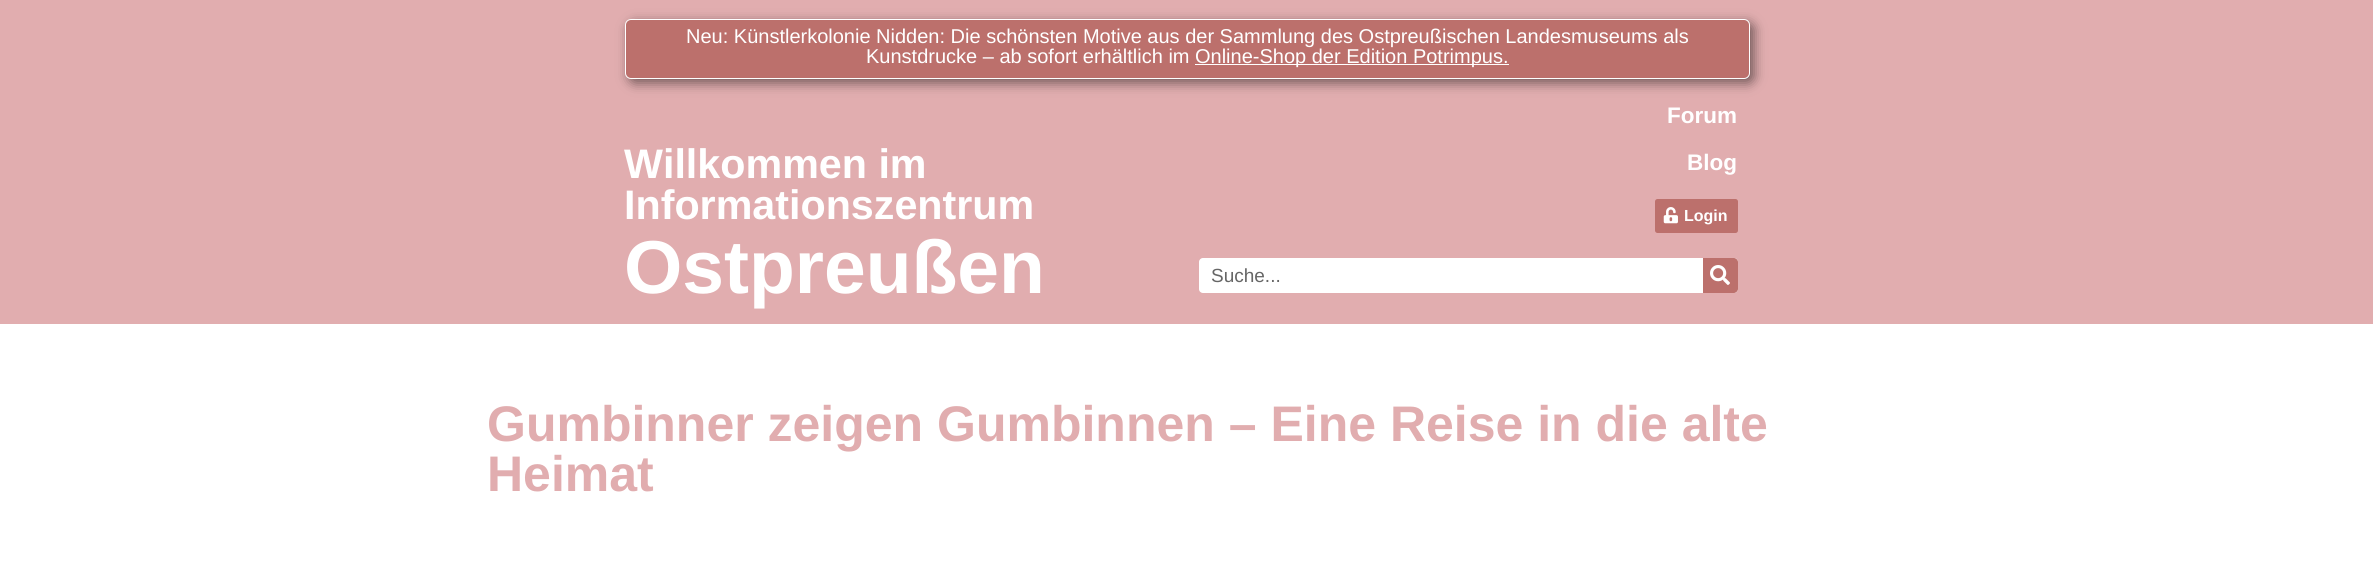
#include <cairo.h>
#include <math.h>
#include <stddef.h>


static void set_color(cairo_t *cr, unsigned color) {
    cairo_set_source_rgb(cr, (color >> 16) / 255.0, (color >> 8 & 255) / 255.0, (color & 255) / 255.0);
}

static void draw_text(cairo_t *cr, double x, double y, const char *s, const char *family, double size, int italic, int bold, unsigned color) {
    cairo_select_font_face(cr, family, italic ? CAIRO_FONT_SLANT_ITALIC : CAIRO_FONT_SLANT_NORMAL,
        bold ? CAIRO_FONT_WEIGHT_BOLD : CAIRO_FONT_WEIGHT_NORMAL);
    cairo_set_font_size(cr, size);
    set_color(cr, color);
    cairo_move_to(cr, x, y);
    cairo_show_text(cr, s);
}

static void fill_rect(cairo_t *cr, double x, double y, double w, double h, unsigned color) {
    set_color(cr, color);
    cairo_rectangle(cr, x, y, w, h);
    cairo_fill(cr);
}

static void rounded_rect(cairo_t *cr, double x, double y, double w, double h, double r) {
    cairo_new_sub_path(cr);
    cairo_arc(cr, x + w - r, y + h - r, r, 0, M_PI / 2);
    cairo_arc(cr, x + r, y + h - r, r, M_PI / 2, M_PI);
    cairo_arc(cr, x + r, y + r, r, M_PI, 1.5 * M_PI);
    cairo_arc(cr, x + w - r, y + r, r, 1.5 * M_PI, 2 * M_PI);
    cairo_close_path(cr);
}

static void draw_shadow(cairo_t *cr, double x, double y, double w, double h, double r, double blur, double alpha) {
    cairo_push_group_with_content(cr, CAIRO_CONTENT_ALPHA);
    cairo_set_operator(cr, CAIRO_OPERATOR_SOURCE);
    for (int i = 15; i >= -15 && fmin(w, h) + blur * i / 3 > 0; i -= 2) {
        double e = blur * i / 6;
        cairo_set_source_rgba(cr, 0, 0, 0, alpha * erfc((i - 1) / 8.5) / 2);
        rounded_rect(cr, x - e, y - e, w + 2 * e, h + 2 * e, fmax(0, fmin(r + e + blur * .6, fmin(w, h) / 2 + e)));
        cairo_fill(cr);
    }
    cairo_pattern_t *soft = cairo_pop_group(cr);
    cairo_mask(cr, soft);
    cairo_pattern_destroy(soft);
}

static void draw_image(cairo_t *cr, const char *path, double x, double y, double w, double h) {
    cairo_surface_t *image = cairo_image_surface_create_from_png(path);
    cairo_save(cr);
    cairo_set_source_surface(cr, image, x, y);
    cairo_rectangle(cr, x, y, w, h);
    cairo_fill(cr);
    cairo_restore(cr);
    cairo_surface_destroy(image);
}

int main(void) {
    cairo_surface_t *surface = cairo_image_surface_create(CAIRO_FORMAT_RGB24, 2373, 562);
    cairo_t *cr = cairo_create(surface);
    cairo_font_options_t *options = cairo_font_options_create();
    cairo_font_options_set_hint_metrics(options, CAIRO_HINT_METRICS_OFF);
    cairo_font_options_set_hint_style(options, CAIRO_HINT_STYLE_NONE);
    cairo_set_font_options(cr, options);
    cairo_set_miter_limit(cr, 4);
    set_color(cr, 0xFFFFFF);
    cairo_paint(cr);
    fill_rect(cr, 0, 0, 2373, 324, 0xE1ADAF);
    set_color(cr, 0x000000);
    draw_shadow(cr, 629, 23, 1125, 60, 6, 6, 0.5);
    set_color(cr, 0xBC706C);
    rounded_rect(cr, 625.5, 19.5, 1124, 59, 5.5);
    cairo_fill_preserve(cr);
    set_color(cr, 0xFFFFFF);
    cairo_set_line_width(cr, 1);
    cairo_stroke(cr);
    draw_text(cr, 686, 43, "Neu: Künstlerkolonie Nidden: Die schönsten Motive aus der Sammlung des Ostpreußischen Landesmuseums als", "Liberation Sans", 20, 0, 0, 0xFFFFFF);
    draw_text(cr, 866, 63, "Kunstdrucke – ab sofort erhältlich im", "Liberation Sans", 20, 0, 0, 0xFFFFFF);
    fill_rect(cr, 1195, 64, 314, 1, 0xFFFFFF);
    draw_text(cr, 1195, 63, "Online-Shop der Edition Potrimpus.", "Liberation Sans", 20, 0, 0, 0xFFFFFF);
    draw_text(cr, 624, 178, "Willkommen im", "Liberation Sans", 41.25, 0, 1, 0xFFFFFF);
    draw_text(cr, 624, 219, "Informationszentrum", "Liberation Sans", 41.25, 0, 1, 0xFFFFFF);
    draw_text(cr, 624, 293, "Ostpreußen", "Liberation Sans", 75, 0, 1, 0xFFFFFF);
    draw_text(cr, 1667, 123, "Forum", "Liberation Sans", 22.5, 0, 1, 0xFFFFFF);
    draw_text(cr, 1687, 170, "Blog", "Liberation Sans", 22.5, 0, 1, 0xFFFFFF);
    set_color(cr, 0xBC706C);
    rounded_rect(cr, 1655, 199, 83, 34, 2.5);
    cairo_fill(cr);
    draw_image(cr, "assets/img1.png", 1663, 207, 15, 17);
    draw_text(cr, 1684, 221, "Login", "Liberation Sans", 16, 0, 1, 0xFFFFFF);
    rounded_rect(cr, 1199, 258, 539, 35, 4);
    cairo_fill(cr);
    draw_text(cr, 1211, 282, "Suche...", "Liberation Sans", 19, 0, 0, 0x666666);
    set_color(cr, 0xBC706C);
    cairo_new_path(cr);
    cairo_move_to(cr, 1703, 258);
    cairo_line_to(cr, 1734, 258);
    cairo_curve_to(cr, 1736, 258, 1738, 260, 1738, 262);
    cairo_line_to(cr, 1738, 289);
    cairo_curve_to(cr, 1738, 291, 1736, 293, 1734, 293);
    cairo_line_to(cr, 1703, 293);
    cairo_close_path(cr);
    cairo_fill(cr);
    draw_image(cr, "assets/img2.png", 1710, 265, 20, 20);
    draw_text(cr, 487, 441, "Gumbinner zeigen Gumbinnen – Eine Reise in die alte", "Liberation Sans", 50, 0, 1, 0xE1ADAF);
    draw_text(cr, 487, 491, "Heimat", "Liberation Sans", 50, 0, 1, 0xE1ADAF);
    cairo_surface_write_to_png(surface, "output.png");
    cairo_font_options_destroy(options);
    cairo_destroy(cr);
    cairo_surface_destroy(surface);
    return 0;
}
